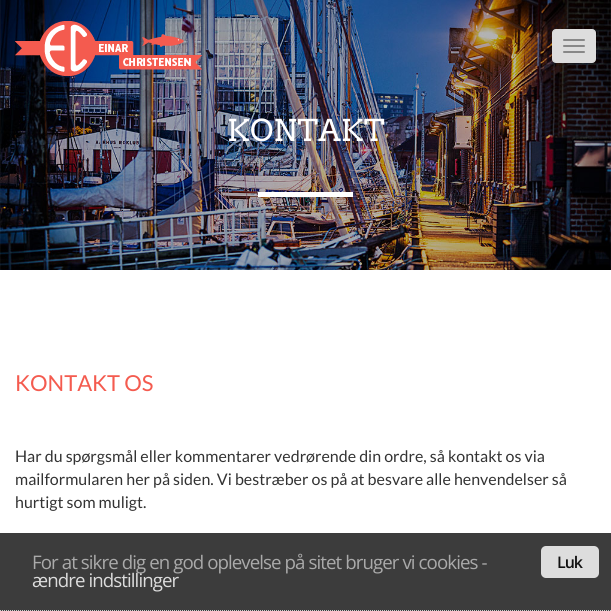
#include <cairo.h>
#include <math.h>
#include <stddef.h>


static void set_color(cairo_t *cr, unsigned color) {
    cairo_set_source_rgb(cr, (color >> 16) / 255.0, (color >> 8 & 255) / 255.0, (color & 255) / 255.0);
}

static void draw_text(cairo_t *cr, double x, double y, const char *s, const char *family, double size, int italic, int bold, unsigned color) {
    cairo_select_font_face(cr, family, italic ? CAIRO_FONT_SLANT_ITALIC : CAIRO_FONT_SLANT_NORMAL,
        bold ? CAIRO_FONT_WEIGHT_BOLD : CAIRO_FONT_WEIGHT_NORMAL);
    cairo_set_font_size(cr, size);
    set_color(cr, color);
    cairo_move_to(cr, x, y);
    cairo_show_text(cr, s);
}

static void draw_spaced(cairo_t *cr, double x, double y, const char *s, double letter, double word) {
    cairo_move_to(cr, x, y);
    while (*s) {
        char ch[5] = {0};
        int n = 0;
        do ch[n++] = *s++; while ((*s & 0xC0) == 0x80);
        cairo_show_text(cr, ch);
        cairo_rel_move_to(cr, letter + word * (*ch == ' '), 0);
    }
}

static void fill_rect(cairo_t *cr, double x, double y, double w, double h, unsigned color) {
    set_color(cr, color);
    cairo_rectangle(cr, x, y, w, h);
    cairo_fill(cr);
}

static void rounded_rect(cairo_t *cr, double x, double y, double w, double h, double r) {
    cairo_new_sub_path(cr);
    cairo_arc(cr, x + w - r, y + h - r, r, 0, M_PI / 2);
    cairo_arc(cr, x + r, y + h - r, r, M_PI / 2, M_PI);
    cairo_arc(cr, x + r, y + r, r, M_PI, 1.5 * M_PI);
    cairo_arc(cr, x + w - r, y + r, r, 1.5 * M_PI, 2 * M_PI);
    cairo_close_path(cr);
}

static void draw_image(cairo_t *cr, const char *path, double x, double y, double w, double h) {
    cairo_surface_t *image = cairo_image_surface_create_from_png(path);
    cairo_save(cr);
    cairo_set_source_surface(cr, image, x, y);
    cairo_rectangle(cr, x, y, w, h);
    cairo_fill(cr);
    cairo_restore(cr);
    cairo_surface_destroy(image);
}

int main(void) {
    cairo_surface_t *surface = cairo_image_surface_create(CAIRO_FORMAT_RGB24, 611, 611);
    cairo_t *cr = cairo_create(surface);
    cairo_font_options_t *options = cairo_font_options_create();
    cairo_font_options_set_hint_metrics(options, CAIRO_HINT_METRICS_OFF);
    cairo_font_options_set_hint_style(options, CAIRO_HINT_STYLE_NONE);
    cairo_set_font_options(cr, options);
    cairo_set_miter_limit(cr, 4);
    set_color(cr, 0xFFFFFF);
    cairo_paint(cr);
    draw_image(cr, "assets/img2.png", 0, 0, 611, 270);
    draw_image(cr, "assets/img1.png", 15, 21, 187, 55);
    set_color(cr, 0xDDDDDD);
    rounded_rect(cr, 552.5, 29.5, 43, 33, 3.5);
    cairo_fill_preserve(cr);
    cairo_set_line_width(cr, 1);
    cairo_stroke(cr);
    set_color(cr, 0x888888);
    rounded_rect(cr, 563, 39, 22, 2, 1);
    cairo_fill(cr);
    rounded_rect(cr, 563, 45, 22, 2, 1);
    cairo_fill(cr);
    rounded_rect(cr, 563, 51, 22, 2, 1);
    cairo_fill(cr);
    fill_rect(cr, 258, 192, 95, 5, 0xFFFFFF);
    draw_text(cr, 227, 141, "KONTAKT", "Arvo", 30, 0, 0, 0xFFFFFF);
    draw_text(cr, 15, 391, "KONTAKT OS", "Lato", 22, 0, 0, 0xF45B4F);
    draw_text(cr, 15, 462, "Har du spørgsmål eller kommentarer vedrørende din ordre, så kontakt os via", "Lato", 16, 0, 0, 0x333333);
    draw_text(cr, 15, 485, "mailformularen her på siden. Vi bestræber os på at besvare alle henvendelser så", "Lato", 16, 0, 0, 0x333333);
    draw_text(cr, 15, 508, "hurtigt som muligt.", "Lato", 16, 0, 0, 0x333333);
    cairo_set_source_rgba(cr, 0.2, 0.2, 0.2, 0.95);
    cairo_rectangle(cr, 0, 533, 611, 78);
    cairo_fill(cr);
    cairo_new_path(cr);
    cairo_move_to(cr, 0, 610.5);
    cairo_line_to(cr, 611, 610.5);
    set_color(cr, 0xCCCCCC);
    cairo_set_dash(cr, (double[]){1, 1}, 2, 0);
    cairo_stroke(cr);
    cairo_select_font_face(cr, "Open Sans", CAIRO_FONT_SLANT_NORMAL, CAIRO_FONT_WEIGHT_NORMAL);
    cairo_set_font_size(cr, 18.7);
    set_color(cr, 0xAAAAAA);
    draw_spaced(cr, 32, 569, "For at sikre dig en god oplevelse på sitet bruger vi cookies -", -0.93, 0);
    set_color(cr, 0xDDDDDD);
    draw_spaced(cr, 32, 587, "ændre indstillinger", -0.93, 0);
    rounded_rect(cr, 541, 546, 58, 32, 5);
    cairo_fill(cr);
    cairo_select_font_face(cr, "Open Sans SemiBold", CAIRO_FONT_SLANT_NORMAL, CAIRO_FONT_WEIGHT_NORMAL);
    cairo_set_font_size(cr, 16);
    set_color(cr, 0x111111);
    draw_spaced(cr, 557, 568, "Luk", -1, 0);
    cairo_surface_write_to_png(surface, "output.png");
    cairo_font_options_destroy(options);
    cairo_destroy(cr);
    cairo_surface_destroy(surface);
    return 0;
}
